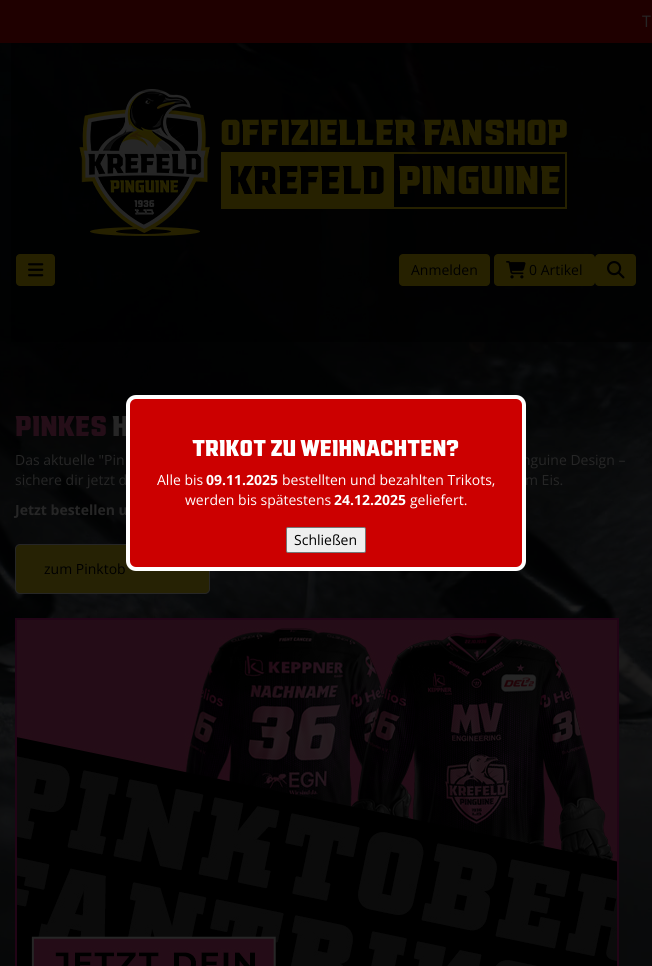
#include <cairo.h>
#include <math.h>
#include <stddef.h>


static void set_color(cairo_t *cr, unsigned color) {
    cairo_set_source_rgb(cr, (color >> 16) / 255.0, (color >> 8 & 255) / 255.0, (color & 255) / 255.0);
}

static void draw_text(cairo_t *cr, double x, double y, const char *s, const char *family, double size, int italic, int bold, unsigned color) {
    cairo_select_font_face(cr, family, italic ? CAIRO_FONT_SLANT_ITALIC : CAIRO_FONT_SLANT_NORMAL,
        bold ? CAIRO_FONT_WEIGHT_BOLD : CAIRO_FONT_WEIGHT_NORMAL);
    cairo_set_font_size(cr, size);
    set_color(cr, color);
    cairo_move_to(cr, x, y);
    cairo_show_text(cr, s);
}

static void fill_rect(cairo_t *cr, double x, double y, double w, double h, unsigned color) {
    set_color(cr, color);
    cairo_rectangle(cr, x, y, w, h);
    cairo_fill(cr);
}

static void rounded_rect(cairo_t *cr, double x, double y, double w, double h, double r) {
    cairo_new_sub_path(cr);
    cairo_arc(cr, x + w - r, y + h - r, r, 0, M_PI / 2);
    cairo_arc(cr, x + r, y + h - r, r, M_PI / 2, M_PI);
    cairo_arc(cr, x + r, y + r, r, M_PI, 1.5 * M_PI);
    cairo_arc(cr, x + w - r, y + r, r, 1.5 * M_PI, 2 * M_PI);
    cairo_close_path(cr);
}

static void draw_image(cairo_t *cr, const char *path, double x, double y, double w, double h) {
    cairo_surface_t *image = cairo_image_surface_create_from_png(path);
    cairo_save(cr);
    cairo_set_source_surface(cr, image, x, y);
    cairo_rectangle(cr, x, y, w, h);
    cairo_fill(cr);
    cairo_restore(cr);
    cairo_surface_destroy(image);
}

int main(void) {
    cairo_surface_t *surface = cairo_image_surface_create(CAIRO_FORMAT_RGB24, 652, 966);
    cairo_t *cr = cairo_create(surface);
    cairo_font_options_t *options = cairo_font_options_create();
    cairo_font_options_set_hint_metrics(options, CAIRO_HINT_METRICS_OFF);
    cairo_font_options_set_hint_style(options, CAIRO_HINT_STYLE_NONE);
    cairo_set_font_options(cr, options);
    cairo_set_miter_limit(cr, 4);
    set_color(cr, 0xFFFFFF);
    cairo_paint(cr);
    draw_image(cr, "assets/img1.png", 0, 43, 652, 923);
    cairo_set_source_rgba(cr, 0, 0, 0, 0.6);
    cairo_rectangle(cr, 11, 43, 641, 299);
    cairo_fill(cr);
    draw_image(cr, "assets/img2.png", 79, 89, 488, 147);
    cairo_set_source_rgba(cr, 0, 0, 0, 0.2);
    cairo_rectangle(cr, 140, 90, 25, 2);
    cairo_fill(cr);
    fill_rect(cr, 0, 0, 652, 43, 0x1F0000);
    draw_text(cr, 642, 27, "T", "Open Sans", 16, 0, 0, 0x262626);
    set_color(cr, 0x262100);
    rounded_rect(cr, 16, 254, 39, 32, 4);
    cairo_fill(cr);
    draw_image(cr, "assets/img3.png", 28, 263, 16, 14);
    rounded_rect(cr, 399, 254, 91, 32, 4);
    cairo_fill(cr);
    draw_text(cr, 411, 275, "Anmelden", "Open Sans", 14, 0, 0, 0x000000);
    set_color(cr, 0x262100);
    rounded_rect(cr, 494, 254, 101, 32, 4);
    cairo_fill(cr);
    draw_image(cr, "assets/img4.png", 506, 261, 20, 18);
    draw_text(cr, 529, 275, "0 Artikel", "Open Sans", 14, 0, 0, 0x000000);
    set_color(cr, 0x262100);
    rounded_rect(cr, 595, 254, 41, 32, 4);
    cairo_fill(cr);
    draw_image(cr, "assets/img5.png", 607, 261, 18, 18);
    draw_text(cr, 112, 436, "H", "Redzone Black", 30, 0, 0, 0x262626);
    draw_text(cr, 522, 465, "nguine Design –", "Open Sans", 14, 0, 0, 0x262626);
    draw_text(cr, 15, 515, "Jetzt bestellen u", "Open Sans", 14, 0, 1, 0x262626);
    set_color(cr, 0x262204);
    rounded_rect(cr, 15.5, 544.5, 194, 49, 4.5);
    cairo_fill_preserve(cr);
    set_color(cr, 0x262626);
    cairo_set_line_width(cr, 1);
    cairo_stroke(cr);
    set_color(cr, 0xCC0000);
    rounded_rect(cr, 128, 397, 396, 172, 8);
    cairo_fill_preserve(cr);
    set_color(cr, 0xFFFFFF);
    cairo_set_line_width(cr, 4);
    cairo_stroke(cr);
    draw_text(cr, 192, 456, "TRIKOT ZU WEIHNACHTEN?", "Redzone Black", 24, 0, 0, 0xFFFFFF);
    draw_text(cr, 157, 485, "Alle bis", "Open Sans", 14, 0, 0, 0xFFFFFF);
    draw_text(cr, 206, 485, "09.11.2025", "Open Sans", 14, 0, 1, 0xFFFFFF);
    draw_text(cr, 282, 485, "bestellten und bezahlten Trikots,", "Open Sans", 14, 0, 0, 0xFFFFFF);
    draw_text(cr, 185, 505, "werden bis spätestens", "Open Sans", 14, 0, 0, 0xFFFFFF);
    draw_text(cr, 334, 505, "24.12.2025", "Open Sans", 14, 0, 1, 0xFFFFFF);
    draw_text(cr, 410, 505, "geliefert.", "Open Sans", 14, 0, 0, 0xFFFFFF);
    set_color(cr, 0xEFEFEF);
    rounded_rect(cr, 286.5, 527.5, 79, 25, 1.5);
    cairo_fill_preserve(cr);
    set_color(cr, 0x767676);
    cairo_set_line_width(cr, 1);
    cairo_stroke(cr);
    draw_text(cr, 294, 545, "Schließen", "Open Sans", 14, 0, 0, 0x000000);
    draw_text(cr, 15, 436, "PINKES", "Redzone Black", 30, 0, 0, 0x250E18);
    draw_text(cr, 15, 465, "Das aktuelle \"Pin", "Open Sans", 14, 0, 0, 0x262626);
    draw_text(cr, 15, 485, "sichere dir jetzt d", "Open Sans", 14, 0, 0, 0x262626);
    draw_text(cr, 525, 485, "m Eis.", "Open Sans", 14, 0, 0, 0x262626);
    draw_text(cr, 44, 574, "zum Pinktob", "Open Sans", 14, 0, 0, 0x000000);
    cairo_rectangle(cr, 16, 619, 602, 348);
    set_color(cr, 0x220416);
    cairo_set_line_width(cr, 2);
    cairo_stroke(cr);
    draw_image(cr, "assets/img6.png", 17, 620, 600, 346);
    cairo_surface_write_to_png(surface, "output.png");
    cairo_font_options_destroy(options);
    cairo_destroy(cr);
    cairo_surface_destroy(surface);
    return 0;
}
